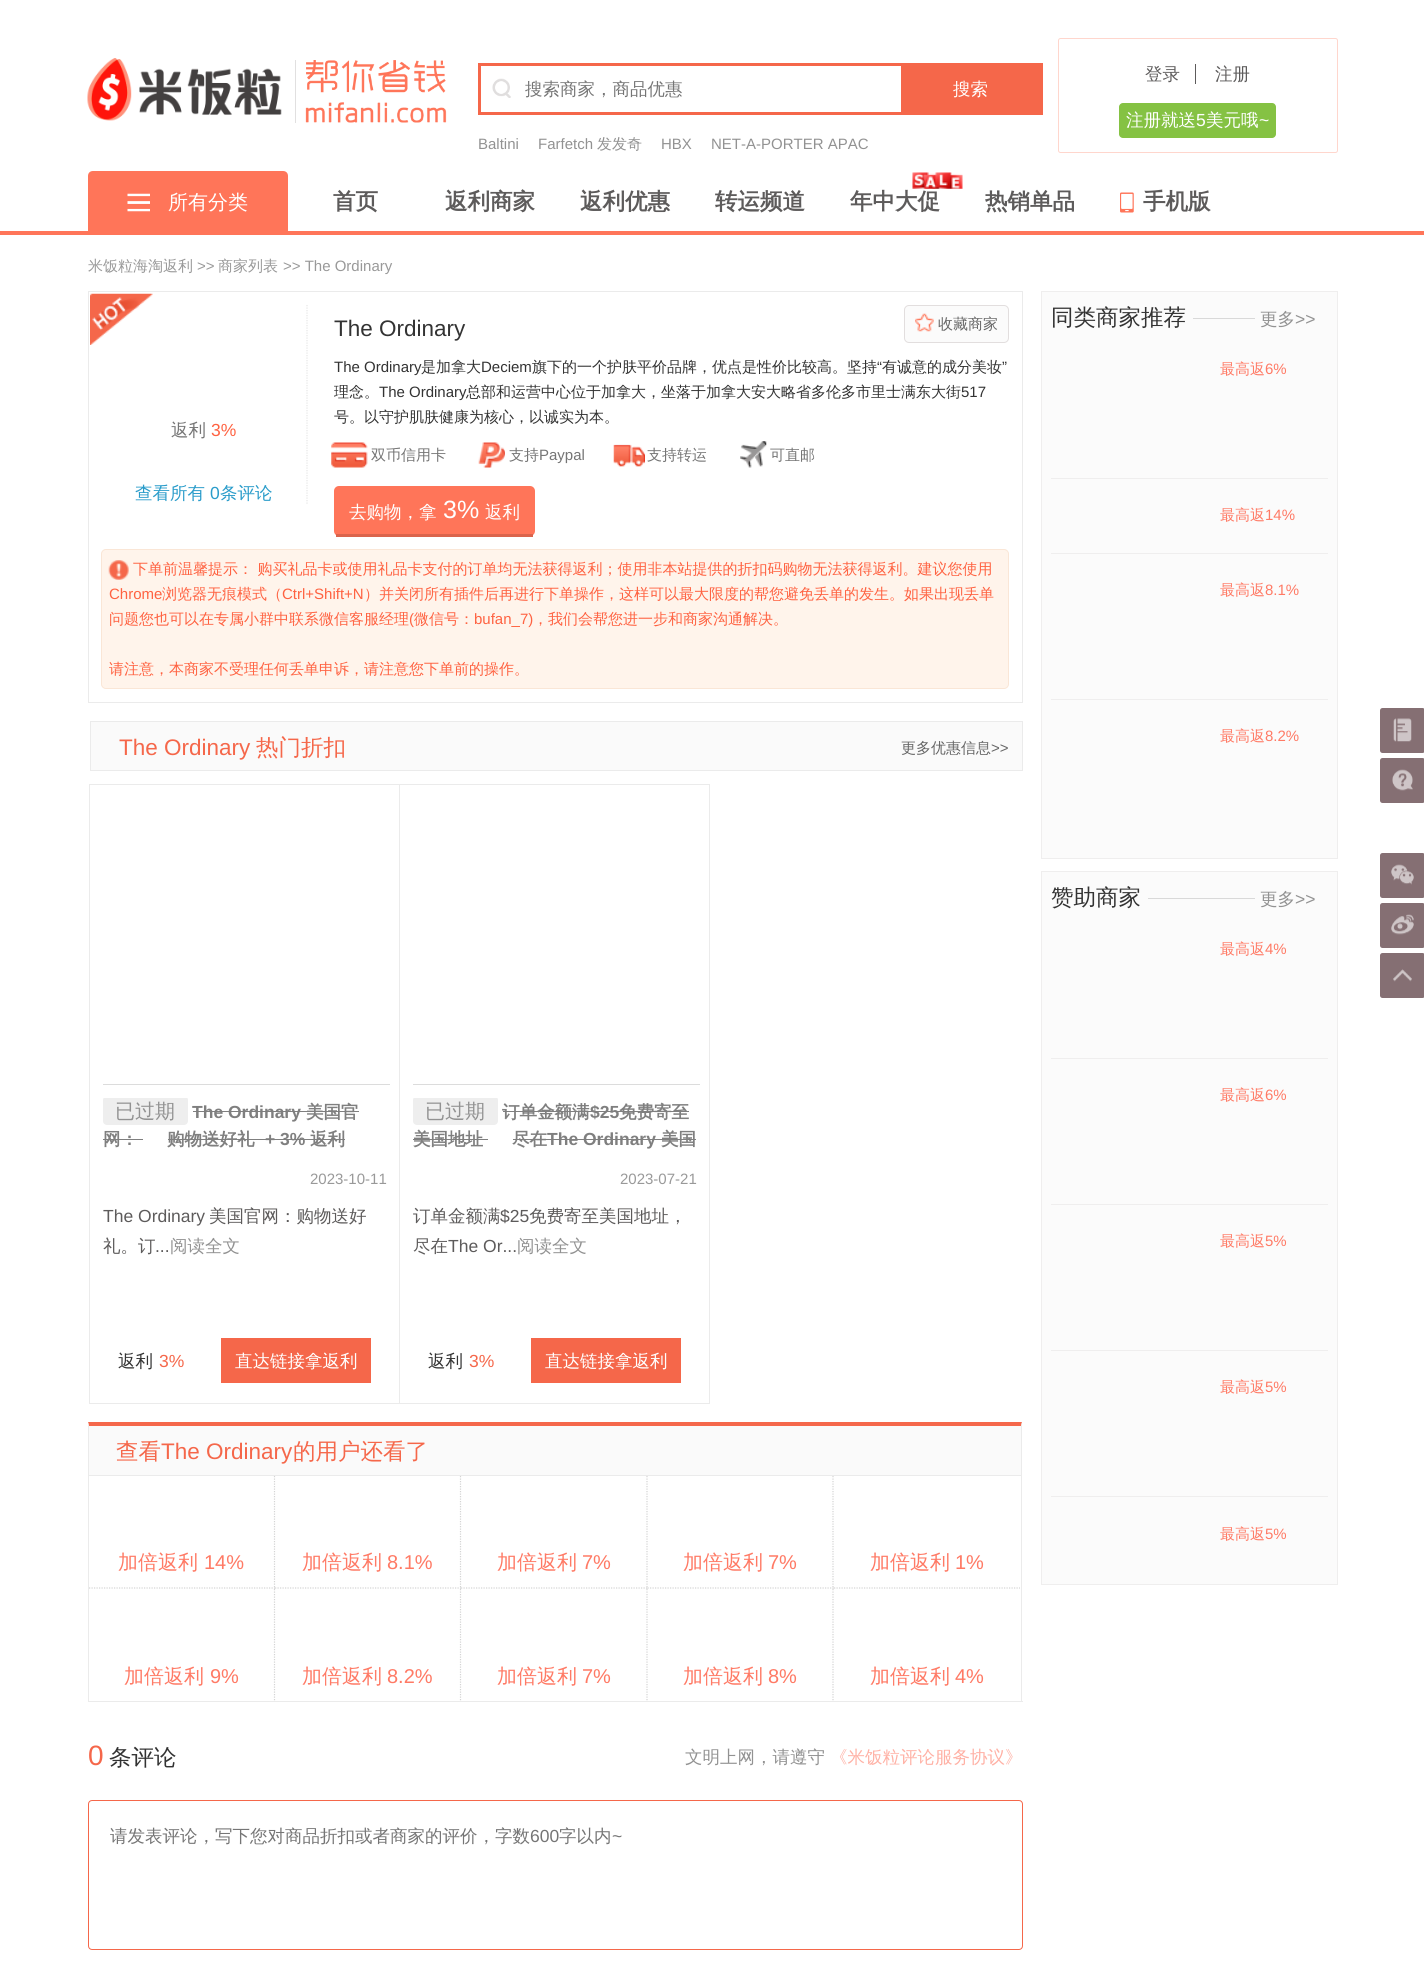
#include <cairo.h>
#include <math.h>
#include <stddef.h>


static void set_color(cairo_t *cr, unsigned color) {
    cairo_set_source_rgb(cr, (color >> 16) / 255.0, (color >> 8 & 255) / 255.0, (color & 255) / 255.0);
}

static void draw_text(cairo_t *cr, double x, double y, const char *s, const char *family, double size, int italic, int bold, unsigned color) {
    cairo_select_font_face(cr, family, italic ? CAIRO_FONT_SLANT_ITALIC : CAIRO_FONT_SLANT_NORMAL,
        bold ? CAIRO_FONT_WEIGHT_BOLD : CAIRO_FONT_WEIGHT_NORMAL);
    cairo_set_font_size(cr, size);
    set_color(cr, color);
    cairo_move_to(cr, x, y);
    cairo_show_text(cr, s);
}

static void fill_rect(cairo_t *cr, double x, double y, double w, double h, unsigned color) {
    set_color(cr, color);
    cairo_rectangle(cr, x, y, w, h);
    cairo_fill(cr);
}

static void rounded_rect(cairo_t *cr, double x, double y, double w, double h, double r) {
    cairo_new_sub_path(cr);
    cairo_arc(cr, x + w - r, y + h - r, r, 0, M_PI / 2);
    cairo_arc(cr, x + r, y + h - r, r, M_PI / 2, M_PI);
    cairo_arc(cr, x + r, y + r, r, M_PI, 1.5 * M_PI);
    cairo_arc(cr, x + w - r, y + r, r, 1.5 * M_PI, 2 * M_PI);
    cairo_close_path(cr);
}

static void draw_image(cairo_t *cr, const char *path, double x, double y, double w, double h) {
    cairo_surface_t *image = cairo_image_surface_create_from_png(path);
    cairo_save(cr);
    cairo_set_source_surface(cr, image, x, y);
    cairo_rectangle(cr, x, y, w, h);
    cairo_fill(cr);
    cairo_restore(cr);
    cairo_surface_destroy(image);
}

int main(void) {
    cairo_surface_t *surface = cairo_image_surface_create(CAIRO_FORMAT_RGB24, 1424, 1965);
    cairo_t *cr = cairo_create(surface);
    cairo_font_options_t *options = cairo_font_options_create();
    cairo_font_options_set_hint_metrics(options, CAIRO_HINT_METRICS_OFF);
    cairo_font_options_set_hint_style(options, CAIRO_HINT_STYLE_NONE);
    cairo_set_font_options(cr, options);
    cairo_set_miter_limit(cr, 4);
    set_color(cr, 0xFFFFFF);
    cairo_paint(cr);
    draw_image(cr, "assets/img1.png", 87, 58, 195, 63);
    draw_image(cr, "assets/img2.png", 305, 60, 142, 63);
    fill_rect(cr, 295, 60, 1, 63, 0xE1E0E0);
    cairo_rectangle(cr, 479.5, 64.5, 562, 49);
    set_color(cr, 0xF5674A);
    cairo_set_line_width(cr, 3);
    cairo_stroke(cr);
    draw_image(cr, "assets/img3.png", 492, 78, 19, 20);
    draw_text(cr, 525, 95, "搜索商家，商品优惠", "WenQuanYi Zen Hei Medium", 17.5, 0, 0, 0x757575);
    fill_rect(cr, 901, 66, 139, 46, 0xF5674A);
    draw_text(cr, 953, 95, "搜索", "WenQuanYi Zen Hei Medium", 17.5, 0, 0, 0xFFFFFF);
    draw_text(cr, 478, 149, "Baltini", "Liberation Sans", 15, 0, 0, 0x929292);
    draw_text(cr, 538, 149, "Farfetch", "Liberation Sans", 15, 0, 0, 0x929292);
    draw_text(cr, 597, 149, "发发奇", "WenQuanYi Zen Hei Medium", 15, 0, 0, 0x929292);
    draw_text(cr, 661, 149, "HBX", "Liberation Sans", 15, 0, 0, 0x929292);
    draw_text(cr, 711, 149, "NET-A-PORTER APAC", "Liberation Sans", 15, 0, 0, 0x929292);
    rounded_rect(cr, 1058.5, 38.5, 279, 114, 2);
    set_color(cr, 0xFFD6CD);
    cairo_set_line_width(cr, 1);
    cairo_stroke(cr);
    draw_text(cr, 1145, 80, "登录", "WenQuanYi Zen Hei Medium", 17.5, 0, 0, 0x5D5B5B);
    fill_rect(cr, 1195, 64, 1, 20, 0x5D5B5B);
    draw_text(cr, 1215, 80, "注册", "WenQuanYi Zen Hei Medium", 17.5, 0, 0, 0x5D5B5B);
    set_color(cr, 0x85C243);
    rounded_rect(cr, 1119, 103, 157, 35, 4);
    cairo_fill(cr);
    draw_text(cr, 1126, 126, "注册就送", "WenQuanYi Zen Hei Medium", 17.5, 0, 0, 0xFFFFFF);
    draw_text(cr, 1196, 126, "5", "Liberation Sans", 17.5, 0, 0, 0xFFFFFF);
    draw_text(cr, 1206, 126, "美元哦", "WenQuanYi Zen Hei Medium", 17.5, 0, 0, 0xFFFFFF);
    draw_text(cr, 1259, 126, "~", "Liberation Sans", 17.5, 0, 0, 0xFFFFFF);
    fill_rect(cr, 0, 231, 1424, 4, 0xFF7559);
    cairo_new_path(cr);
    cairo_move_to(cr, 93, 171);
    cairo_line_to(cr, 283, 171);
    cairo_curve_to(cr, 286, 171, 288, 173, 288, 176);
    cairo_line_to(cr, 288, 235);
    cairo_line_to(cr, 88, 235);
    cairo_line_to(cr, 88, 176);
    cairo_curve_to(cr, 88, 173, 90, 171, 93, 171);
    cairo_close_path(cr);
    cairo_fill(cr);
    draw_image(cr, "assets/img4.png", 127, 193, 23, 19);
    draw_text(cr, 168, 209, "所有分类", "WenQuanYi Zen Hei Medium", 20, 0, 0, 0xFFFFFF);
    draw_text(cr, 333, 209, "首页", "WenQuanYi Zen Hei", 22.5, 0, 1, 0x5D5B5B);
    draw_text(cr, 445, 209, "返利商家", "WenQuanYi Zen Hei", 22.5, 0, 1, 0x5D5B5B);
    draw_text(cr, 580, 209, "返利优惠", "WenQuanYi Zen Hei", 22.5, 0, 1, 0x5D5B5B);
    draw_text(cr, 715, 209, "转运频道", "WenQuanYi Zen Hei", 22.5, 0, 1, 0x5D5B5B);
    draw_image(cr, "assets/img5.png", 912, 172, 51, 17);
    draw_text(cr, 850, 209, "年中大促", "WenQuanYi Zen Hei", 22.5, 0, 1, 0x5D5B5B);
    draw_text(cr, 985, 209, "热销单品", "WenQuanYi Zen Hei", 22.5, 0, 1, 0x5D5B5B);
    draw_image(cr, "assets/img6.png", 1120, 192, 14, 21);
    draw_text(cr, 1143, 209, "手机版", "WenQuanYi Zen Hei", 22.5, 0, 1, 0x5D5B5B);
    draw_text(cr, 88, 271, "米饭粒海淘返利", "WenQuanYi Zen Hei Medium", 15, 0, 0, 0x999999);
    draw_text(cr, 197, 271, ">>", "Liberation Sans", 15, 0, 0, 0x999999);
    draw_text(cr, 218, 271, "商家列表", "WenQuanYi Zen Hei Medium", 15, 0, 0, 0x999999);
    draw_text(cr, 283, 271, ">> The Ordinary", "Liberation Sans", 15, 0, 0, 0x999999);
    cairo_rectangle(cr, 88.5, 291.5, 934, 411);
    set_color(cr, 0xEBEBEB);
    cairo_stroke(cr);
    draw_image(cr, "assets/img7.png", 90, 293, 63, 52);
    set_color(cr, 0xFBFBFB);
    rounded_rect(cr, 904.5, 305.5, 104, 37, 4.5);
    cairo_fill_preserve(cr);
    set_color(cr, 0xE2DEDE);
    cairo_stroke(cr);
    draw_image(cr, "assets/img8.png", 915, 313, 19, 19);
    draw_text(cr, 938, 329, "收藏商家", "WenQuanYi Zen Hei Medium", 15, 0, 0, 0x666666);
    cairo_new_path(cr);
    cairo_move_to(cr, 307, 305);
    cairo_line_to(cr, 307, 505);
    set_color(cr, 0xE6E6E6);
    cairo_set_line_width(cr, 1.2);
    cairo_set_dash(cr, (double[]){1.25, 1.25}, 2, 0);
    cairo_stroke(cr);
    draw_text(cr, 171, 436, "返利", "WenQuanYi Zen Hei Medium", 17.5, 0, 0, 0x757575);
    draw_text(cr, 211, 436, "3%", "Liberation Sans", 17.5, 0, 0, 0xFF6241);
    draw_text(cr, 135, 499, "查看所有", "WenQuanYi Zen Hei Medium", 17.5, 0, 0, 0x2A9CCA);
    draw_text(cr, 210, 499, "0", "Liberation Sans", 17.5, 0, 0, 0x2A9CCA);
    draw_text(cr, 220, 499, "条评论", "WenQuanYi Zen Hei Medium", 17.5, 0, 0, 0x2A9CCA);
    draw_text(cr, 334, 336, "The Ordinary", "Liberation Sans", 22.5, 0, 0, 0x333333);
    draw_text(cr, 334, 372, "The Ordinary", "Liberation Sans", 15, 0, 0, 0x333333);
    draw_text(cr, 421, 372, "是加拿大", "WenQuanYi Zen Hei Medium", 15, 0, 0, 0x333333);
    draw_text(cr, 481, 372, "Deciem", "Liberation Sans", 15, 0, 0, 0x333333);
    draw_text(cr, 532, 372, "旗下的一个护肤平价品牌，优点是性价比较高。坚持", "WenQuanYi Zen Hei Medium", 15, 0, 0, 0x333333);
    draw_text(cr, 877, 372, "“", "Liberation Sans", 15, 0, 0, 0x333333);
    draw_text(cr, 882, 372, "有诚意的成分美妆", "WenQuanYi Zen Hei Medium", 15, 0, 0, 0x333333);
    draw_text(cr, 1002, 372, "”", "Liberation Sans", 15, 0, 0, 0x333333);
    draw_text(cr, 334, 397, "理念。", "WenQuanYi Zen Hei Medium", 15, 0, 0, 0x333333);
    draw_text(cr, 379, 397, "The Ordinary", "Liberation Sans", 15, 0, 0, 0x333333);
    draw_text(cr, 466, 397, "总部和运营中心位于加拿大，坐落于加拿大安大略省多伦多市里士满东大街", "WenQuanYi Zen Hei Medium", 15, 0, 0, 0x333333);
    draw_text(cr, 961, 397, "517", "Liberation Sans", 15, 0, 0, 0x333333);
    draw_text(cr, 334, 422, "号。以守护肌肤健康为核心，以诚实为本。", "WenQuanYi Zen Hei Medium", 15, 0, 0, 0x333333);
    draw_image(cr, "assets/img9.png", 331, 442, 37, 26);
    draw_text(cr, 371, 460, "双币信用卡", "WenQuanYi Zen Hei Medium", 15, 0, 0, 0x757575);
    draw_image(cr, "assets/img10.png", 478, 442, 27, 26);
    draw_text(cr, 509, 460, "支持", "WenQuanYi Zen Hei Medium", 15, 0, 0, 0x757575);
    draw_text(cr, 539, 460, "Paypal", "Liberation Sans", 15, 0, 0, 0x757575);
    draw_image(cr, "assets/img11.png", 613, 444, 32, 23);
    draw_text(cr, 647, 460, "支持转运", "WenQuanYi Zen Hei Medium", 15, 0, 0, 0x757575);
    draw_image(cr, "assets/img12.png", 740, 441, 27, 27);
    draw_text(cr, 770, 460, "可直邮", "WenQuanYi Zen Hei Medium", 15, 0, 0, 0x757575);
    set_color(cr, 0xFF7559);
    rounded_rect(cr, 334, 486, 201, 50, 5);
    cairo_fill(cr);
    fill_rect(cr, 336, 534, 197, 3, 0xDA644C);
    draw_text(cr, 349, 518, "去购物，拿", "WenQuanYi Zen Hei Medium", 17.5, 0, 0, 0xFFFFFF);
    draw_text(cr, 443, 518, "3%", "Liberation Sans", 25, 0, 0, 0xFFFFFF);
    draw_text(cr, 485, 518, "返利", "WenQuanYi Zen Hei Medium", 17.5, 0, 0, 0xFFFFFF);
    set_color(cr, 0xFFF4EB);
    rounded_rect(cr, 101.5, 549.5, 907, 139, 4.5);
    cairo_fill_preserve(cr);
    set_color(cr, 0xFAE6D6);
    cairo_set_line_width(cr, 1);
    cairo_set_dash(cr, NULL, 0, 0);
    cairo_stroke(cr);
    draw_image(cr, "assets/img13.png", 108, 560, 21, 20);
    draw_text(cr, 133, 574, "下单前温馨提示： 购买礼品卡或使用礼品卡支付的订单均无法获得返利；使用非本站提供的折扣码购物无法获得返利。建议您使用", "WenQuanYi Zen Hei Medium", 15, 0, 0, 0xFF6241);
    draw_text(cr, 109, 599, "Chrome", "Liberation Sans", 15, 0, 0, 0xFF6241);
    draw_text(cr, 162, 599, "浏览器无痕模式（", "WenQuanYi Zen Hei Medium", 15, 0, 0, 0xFF6241);
    draw_text(cr, 282, 599, "Ctrl+Shift+N", "Liberation Sans", 15, 0, 0, 0xFF6241);
    draw_text(cr, 364, 599, "）并关闭所有插件后再进行下单操作，这样可以最大限度的帮您避免丢单的发生。如果出现丢单", "WenQuanYi Zen Hei Medium", 15, 0, 0, 0xFF6241);
    draw_text(cr, 109, 624, "问题您也可以在专属小群中联系微信客服经理", "WenQuanYi Zen Hei Medium", 15, 0, 0, 0xFF6241);
    draw_text(cr, 409, 624, "(", "Liberation Sans", 15, 0, 0, 0xFF6241);
    draw_text(cr, 414, 624, "微信号：", "WenQuanYi Zen Hei Medium", 15, 0, 0, 0xFF6241);
    draw_text(cr, 474, 624, "bufan_7)", "Liberation Sans", 15, 0, 0, 0xFF6241);
    draw_text(cr, 533, 624, "，我们会帮您进一步和商家沟通解决。", "WenQuanYi Zen Hei Medium", 15, 0, 0, 0xFF6241);
    draw_text(cr, 109, 674, "请注意，本商家不受理任何丢单申诉，请注意您下单前的操作。", "WenQuanYi Zen Hei Medium", 15, 0, 0, 0xFF6241);
    set_color(cr, 0xFAFAFA);
    cairo_rectangle(cr, 90.5, 721.5, 932, 49);
    cairo_fill_preserve(cr);
    set_color(cr, 0xEBEBEB);
    cairo_stroke(cr);
    draw_text(cr, 119, 755, "The Ordinary", "Liberation Sans", 22.5, 0, 0, 0xF5674A);
    draw_text(cr, 256, 755, "热门折扣", "WenQuanYi Zen Hei Medium", 22.5, 0, 0, 0xF5674A);
    draw_text(cr, 901, 753, "更多优惠信息", "WenQuanYi Zen Hei Medium", 15, 0, 0, 0x666666);
    draw_text(cr, 991, 753, ">>", "Liberation Sans", 15, 0, 0, 0x666666);
    cairo_rectangle(cr, 89.5, 784.5, 310, 619);
    set_color(cr, 0xEBEBEB);
    cairo_stroke(cr);
    fill_rect(cr, 103, 1084, 287, 1, 0xDCDCDC);
    cairo_save(cr);
    cairo_rectangle(cr, 103, 1098, 283, 60);
    cairo_clip(cr);
    set_color(cr, 0xEEEEEE);
    rounded_rect(cr, 103, 1096, 85, 29, 4);
    cairo_fill(cr);
    cairo_restore(cr);
    draw_text(cr, 115, 1118, "已过期", "WenQuanYi Zen Hei Medium", 20, 0, 0, 0x929292);
    draw_text(cr, 192, 1118, "The Ordinary", "Liberation Sans", 17.5, 0, 1, 0x7F7F7F);
    draw_text(cr, 306, 1118, "美国官", "WenQuanYi Zen Hei", 17.5, 0, 1, 0x7F7F7F);
    fill_rect(cr, 193, 1111, 166, 1, 0x7F7F7F);
    draw_text(cr, 103, 1145, "网：", "WenQuanYi Zen Hei", 17.5, 0, 1, 0x7F7F7F);
    fill_rect(cr, 103, 1139, 40, 1, 0x7F7F7F);
    draw_text(cr, 167, 1145, "购物送好礼", "WenQuanYi Zen Hei", 17.5, 0, 1, 0x7F7F7F);
    fill_rect(cr, 168, 1139, 92, 1, 0x7F7F7F);
    draw_text(cr, 265, 1145, "+ 3%", "Liberation Sans", 17.5, 0, 1, 0x7F7F7F);
    fill_rect(cr, 260, 1139, 85, 1, 0x7F7F7F);
    draw_text(cr, 310, 1145, "返利", "WenQuanYi Zen Hei", 17.5, 0, 1, 0x7F7F7F);
    draw_text(cr, 310, 1184, "2023-10-11", "Liberation Sans", 15, 0, 0, 0x999999);
    draw_text(cr, 103, 1222, "The Ordinary", "Liberation Sans", 17.5, 0, 0, 0x5D5B5B);
    draw_text(cr, 209, 1222, "美国官网：购物送好", "WenQuanYi Zen Hei Medium", 17.5, 0, 0, 0x5D5B5B);
    draw_text(cr, 103, 1252, "礼。订", "WenQuanYi Zen Hei Medium", 17.5, 0, 0, 0x5D5B5B);
    draw_text(cr, 155, 1252, "...", "Liberation Sans", 17.5, 0, 0, 0x5D5B5B);
    draw_text(cr, 170, 1252, "阅读全文", "WenQuanYi Zen Hei Medium", 17.5, 0, 0, 0x929292);
    draw_text(cr, 118, 1367, "返利", "WenQuanYi Zen Hei Medium", 17.5, 0, 0, 0x333333);
    draw_text(cr, 159, 1367, "3%", "Liberation Sans", 17.5, 0, 0, 0xF5674A);
    fill_rect(cr, 221, 1338, 150, 45, 0xF5674A);
    draw_text(cr, 235, 1367, "直达链接拿返利", "WenQuanYi Zen Hei Medium", 17.5, 0, 0, 0xFFFFFF);
    cairo_rectangle(cr, 399.5, 784.5, 310, 619);
    set_color(cr, 0xEBEBEB);
    cairo_stroke(cr);
    fill_rect(cr, 413, 1084, 287, 1, 0xDCDCDC);
    cairo_save(cr);
    cairo_rectangle(cr, 413, 1098, 283, 60);
    cairo_clip(cr);
    set_color(cr, 0xEEEEEE);
    rounded_rect(cr, 413, 1096, 85, 29, 4);
    cairo_fill(cr);
    cairo_restore(cr);
    draw_text(cr, 425, 1118, "已过期", "WenQuanYi Zen Hei Medium", 20, 0, 0, 0x929292);
    draw_text(cr, 502, 1118, "订单金额满", "WenQuanYi Zen Hei", 17.5, 0, 1, 0x7F7F7F);
    fill_rect(cr, 503, 1111, 186, 1, 0x7F7F7F);
    draw_text(cr, 590, 1118, "$25", "Liberation Sans", 17.5, 0, 1, 0x7F7F7F);
    draw_text(cr, 619, 1118, "免费寄至", "WenQuanYi Zen Hei", 17.5, 0, 1, 0x7F7F7F);
    draw_text(cr, 413, 1145, "美国地址", "WenQuanYi Zen Hei", 17.5, 0, 1, 0x7F7F7F);
    fill_rect(cr, 413, 1139, 75, 1, 0x7F7F7F);
    draw_text(cr, 512, 1145, "尽在", "WenQuanYi Zen Hei", 17.5, 0, 1, 0x7F7F7F);
    fill_rect(cr, 513, 1139, 183, 1, 0x7F7F7F);
    draw_text(cr, 547, 1145, "The Ordinary", "Liberation Sans", 17.5, 0, 1, 0x7F7F7F);
    draw_text(cr, 661, 1145, "美国", "WenQuanYi Zen Hei", 17.5, 0, 1, 0x7F7F7F);
    draw_text(cr, 620, 1184, "2023-07-21", "Liberation Sans", 15, 0, 0, 0x999999);
    draw_text(cr, 413, 1222, "订单金额满", "WenQuanYi Zen Hei Medium", 17.5, 0, 0, 0x5D5B5B);
    draw_text(cr, 500, 1222, "$25", "Liberation Sans", 17.5, 0, 0, 0x5D5B5B);
    draw_text(cr, 529, 1222, "免费寄至美国地址，", "WenQuanYi Zen Hei Medium", 17.5, 0, 0, 0x5D5B5B);
    draw_text(cr, 413, 1252, "尽在", "WenQuanYi Zen Hei Medium", 17.5, 0, 0, 0x5D5B5B);
    draw_text(cr, 448, 1252, "The Or...", "Liberation Sans", 17.5, 0, 0, 0x5D5B5B);
    draw_text(cr, 517, 1252, "阅读全文", "WenQuanYi Zen Hei Medium", 17.5, 0, 0, 0x929292);
    draw_text(cr, 428, 1367, "返利", "WenQuanYi Zen Hei Medium", 17.5, 0, 0, 0x333333);
    draw_text(cr, 469, 1367, "3%", "Liberation Sans", 17.5, 0, 0, 0xF5674A);
    fill_rect(cr, 531, 1338, 150, 45, 0xF5674A);
    draw_text(cr, 545, 1367, "直达链接拿返利", "WenQuanYi Zen Hei Medium", 17.5, 0, 0, 0xFFFFFF);
    set_color(cr, 0xF5684B);
    cairo_new_path(cr);
    cairo_move_to(cr, 88, 1422);
    cairo_line_to(cr, 1022, 1422);
    cairo_line_to(cr, 1021, 1426);
    cairo_line_to(cr, 89, 1426);
    cairo_close_path(cr);
    cairo_fill(cr);
    set_color(cr, 0xEBEBEB);
    cairo_new_path(cr);
    cairo_move_to(cr, 1022, 1422);
    cairo_line_to(cr, 1022, 1702);
    cairo_line_to(cr, 1021, 1701);
    cairo_line_to(cr, 1021, 1426);
    cairo_close_path(cr);
    cairo_fill(cr);
    fill_rect(cr, 88, 1701, 935, 1, 0xEBEBEB);
    cairo_new_path(cr);
    cairo_move_to(cr, 88, 1702);
    cairo_line_to(cr, 88, 1422);
    cairo_line_to(cr, 89, 1426);
    cairo_line_to(cr, 89, 1701);
    cairo_close_path(cr);
    cairo_fill(cr);
    fill_rect(cr, 89, 1426, 932, 49, 0xFAFAFA);
    fill_rect(cr, 89, 1475, 932, 1, 0xEBEBEB);
    draw_text(cr, 116, 1459, "查看", "WenQuanYi Zen Hei Medium", 22.5, 0, 0, 0xF5674A);
    draw_text(cr, 161, 1459, "The Ordinary", "Liberation Sans", 22.5, 0, 0, 0xF5674A);
    draw_text(cr, 293, 1459, "的用户还看了", "WenQuanYi Zen Hei Medium", 22.5, 0, 0, 0xF5674A);
    cairo_new_path(cr);
    cairo_move_to(cr, 274.5, 1476);
    cairo_line_to(cr, 274.5, 1589);
    set_color(cr, 0xD4D4D4);
    cairo_set_line_width(cr, 1.2);
    cairo_set_dash(cr, (double[]){1.25, 1.25}, 2, 0);
    cairo_stroke(cr);
    cairo_new_path(cr);
    cairo_move_to(cr, 89, 1588);
    cairo_line_to(cr, 275, 1588);
    cairo_stroke(cr);
    draw_text(cr, 118, 1569, "加倍返利", "WenQuanYi Zen Hei Medium", 20, 0, 0, 0xFF7A65);
    draw_text(cr, 204, 1569, "14%", "Liberation Sans", 20, 0, 0, 0xFF7A65);
    cairo_new_path(cr);
    cairo_move_to(cr, 274.5, 1589);
    cairo_line_to(cr, 274.5, 1701);
    set_color(cr, 0xD4D4D4);
    cairo_stroke(cr);
    draw_text(cr, 124, 1683, "加倍返利", "WenQuanYi Zen Hei Medium", 20, 0, 0, 0xFF7A65);
    draw_text(cr, 210, 1683, "9%", "Liberation Sans", 20, 0, 0, 0xFF7A65);
    cairo_new_path(cr);
    cairo_move_to(cr, 460.5, 1476);
    cairo_line_to(cr, 460.5, 1589);
    set_color(cr, 0xD4D4D4);
    cairo_stroke(cr);
    cairo_new_path(cr);
    cairo_move_to(cr, 275, 1588);
    cairo_line_to(cr, 461, 1588);
    cairo_stroke(cr);
    draw_text(cr, 302, 1569, "加倍返利", "WenQuanYi Zen Hei Medium", 20, 0, 0, 0xFF7A65);
    draw_text(cr, 387, 1569, "8.1%", "Liberation Sans", 20, 0, 0, 0xFF7A65);
    cairo_new_path(cr);
    cairo_move_to(cr, 460.5, 1589);
    cairo_line_to(cr, 460.5, 1701);
    set_color(cr, 0xD4D4D4);
    cairo_stroke(cr);
    draw_text(cr, 302, 1683, "加倍返利", "WenQuanYi Zen Hei Medium", 20, 0, 0, 0xFF7A65);
    draw_text(cr, 387, 1683, "8.2%", "Liberation Sans", 20, 0, 0, 0xFF7A65);
    cairo_new_path(cr);
    cairo_move_to(cr, 647, 1476);
    cairo_line_to(cr, 647, 1589);
    set_color(cr, 0xD4D4D4);
    cairo_stroke(cr);
    cairo_new_path(cr);
    cairo_move_to(cr, 461, 1588);
    cairo_line_to(cr, 647.5, 1588);
    cairo_stroke(cr);
    draw_text(cr, 497, 1569, "加倍返利", "WenQuanYi Zen Hei Medium", 20, 0, 0, 0xFF7A65);
    draw_text(cr, 582, 1569, "7%", "Liberation Sans", 20, 0, 0, 0xFF7A65);
    cairo_new_path(cr);
    cairo_move_to(cr, 647, 1589);
    cairo_line_to(cr, 647, 1701);
    set_color(cr, 0xD4D4D4);
    cairo_stroke(cr);
    draw_text(cr, 497, 1683, "加倍返利", "WenQuanYi Zen Hei Medium", 20, 0, 0, 0xFF7A65);
    draw_text(cr, 582, 1683, "7%", "Liberation Sans", 20, 0, 0, 0xFF7A65);
    cairo_new_path(cr);
    cairo_move_to(cr, 833, 1476);
    cairo_line_to(cr, 833, 1589);
    set_color(cr, 0xD4D4D4);
    cairo_stroke(cr);
    cairo_new_path(cr);
    cairo_move_to(cr, 647.5, 1588);
    cairo_line_to(cr, 834, 1588);
    cairo_stroke(cr);
    draw_text(cr, 683, 1569, "加倍返利", "WenQuanYi Zen Hei Medium", 20, 0, 0, 0xFF7A65);
    draw_text(cr, 768, 1569, "7%", "Liberation Sans", 20, 0, 0, 0xFF7A65);
    cairo_new_path(cr);
    cairo_move_to(cr, 833, 1589);
    cairo_line_to(cr, 833, 1701);
    set_color(cr, 0xD4D4D4);
    cairo_stroke(cr);
    draw_text(cr, 683, 1683, "加倍返利", "WenQuanYi Zen Hei Medium", 20, 0, 0, 0xFF7A65);
    draw_text(cr, 768, 1683, "8%", "Liberation Sans", 20, 0, 0, 0xFF7A65);
    cairo_new_path(cr);
    cairo_move_to(cr, 834, 1588);
    cairo_line_to(cr, 1020, 1588);
    set_color(cr, 0xD4D4D4);
    cairo_stroke(cr);
    draw_text(cr, 870, 1569, "加倍返利", "WenQuanYi Zen Hei Medium", 20, 0, 0, 0xFF7A65);
    draw_text(cr, 955, 1569, "1%", "Liberation Sans", 20, 0, 0, 0xFF7A65);
    draw_text(cr, 870, 1683, "加倍返利", "WenQuanYi Zen Hei Medium", 20, 0, 0, 0xFF7A65);
    draw_text(cr, 955, 1683, "4%", "Liberation Sans", 20, 0, 0, 0xFF7A65);
    draw_text(cr, 88, 1765, "0", "Liberation Sans", 28, 0, 0, 0xF5674A);
    draw_text(cr, 109, 1765, "条评论", "WenQuanYi Zen Hei Medium", 22.5, 0, 0, 0x333333);
    draw_text(cr, 685, 1763, "文明上网，请遵守", "WenQuanYi Zen Hei Medium", 17.5, 0, 0, 0x929292);
    draw_text(cr, 830, 1763, "《米饭粒评论服务协议》", "WenQuanYi Zen Hei Medium", 17.5, 0, 0, 0xFFB1A5);
    rounded_rect(cr, 88.5, 1800.5, 934, 149, 3.5);
    set_color(cr, 0xF5674A);
    cairo_set_line_width(cr, 1);
    cairo_set_dash(cr, NULL, 0, 0);
    cairo_stroke(cr);
    draw_text(cr, 110, 1842, "请发表评论，写下您对商品折扣或者商家的评价，字数", "WenQuanYi Zen Hei Medium", 17.5, 0, 0, 0x757575);
    draw_text(cr, 530, 1842, "600", "Liberation Sans", 17.5, 0, 0, 0x757575);
    draw_text(cr, 559, 1842, "字以内", "WenQuanYi Zen Hei Medium", 17.5, 0, 0, 0x757575);
    draw_text(cr, 612, 1842, "~", "Liberation Sans", 17.5, 0, 0, 0x757575);
    set_color(cr, 0xFBFBFB);
    cairo_rectangle(cr, 1041.5, 291.5, 296, 567);
    cairo_fill_preserve(cr);
    set_color(cr, 0xEFEEEE);
    cairo_stroke(cr);
    draw_text(cr, 1051, 325, "同类商家推荐", "WenQuanYi Zen Hei Medium", 22.5, 0, 0, 0x333333);
    fill_rect(cr, 1193, 318, 62, 1, 0xD9D9D9);
    draw_text(cr, 1260, 325, "更多", "WenQuanYi Zen Hei Medium", 17.5, 0, 0, 0x929292);
    draw_text(cr, 1295, 325, ">>", "Liberation Sans", 17.5, 0, 0, 0x929292);
    fill_rect(cr, 1051, 478, 277, 1, 0xEFEEEE);
    draw_text(cr, 1220, 374, "最高返", "WenQuanYi Zen Hei Medium", 15, 0, 0, 0xFF7A65);
    draw_text(cr, 1265, 374, "6%", "Liberation Sans", 15, 0, 0, 0xFF7A65);
    fill_rect(cr, 1051, 553, 277, 1, 0xEFEEEE);
    draw_text(cr, 1220, 520, "最高返", "WenQuanYi Zen Hei Medium", 15, 0, 0, 0xFF7A65);
    draw_text(cr, 1265, 520, "14%", "Liberation Sans", 15, 0, 0, 0xFF7A65);
    fill_rect(cr, 1051, 699, 277, 1, 0xEFEEEE);
    draw_text(cr, 1220, 595, "最高返", "WenQuanYi Zen Hei Medium", 15, 0, 0, 0xFF7A65);
    draw_text(cr, 1265, 595, "8.1%", "Liberation Sans", 15, 0, 0, 0xFF7A65);
    draw_text(cr, 1220, 741, "最高返", "WenQuanYi Zen Hei Medium", 15, 0, 0, 0xFF7A65);
    draw_text(cr, 1265, 741, "8.2%", "Liberation Sans", 15, 0, 0, 0xFF7A65);
    set_color(cr, 0xFBFBFB);
    cairo_rectangle(cr, 1041.5, 871.5, 296, 713);
    cairo_fill_preserve(cr);
    set_color(cr, 0xEFEEEE);
    cairo_stroke(cr);
    draw_text(cr, 1051, 905, "赞助商家", "WenQuanYi Zen Hei Medium", 22.5, 0, 0, 0x333333);
    fill_rect(cr, 1148, 898, 107, 1, 0xD9D9D9);
    draw_text(cr, 1260, 905, "更多", "WenQuanYi Zen Hei Medium", 17.5, 0, 0, 0x929292);
    draw_text(cr, 1295, 905, ">>", "Liberation Sans", 17.5, 0, 0, 0x929292);
    fill_rect(cr, 1051, 1058, 277, 1, 0xEFEEEE);
    draw_text(cr, 1220, 954, "最高返", "WenQuanYi Zen Hei Medium", 15, 0, 0, 0xFF7A65);
    draw_text(cr, 1265, 954, "4%", "Liberation Sans", 15, 0, 0, 0xFF7A65);
    fill_rect(cr, 1051, 1204, 277, 1, 0xEFEEEE);
    draw_text(cr, 1220, 1100, "最高返", "WenQuanYi Zen Hei Medium", 15, 0, 0, 0xFF7A65);
    draw_text(cr, 1265, 1100, "6%", "Liberation Sans", 15, 0, 0, 0xFF7A65);
    fill_rect(cr, 1051, 1350, 277, 1, 0xEFEEEE);
    draw_text(cr, 1220, 1246, "最高返", "WenQuanYi Zen Hei Medium", 15, 0, 0, 0xFF7A65);
    draw_text(cr, 1265, 1246, "5%", "Liberation Sans", 15, 0, 0, 0xFF7A65);
    fill_rect(cr, 1051, 1496, 277, 1, 0xEFEEEE);
    draw_text(cr, 1220, 1392, "最高返", "WenQuanYi Zen Hei Medium", 15, 0, 0, 0xFF7A65);
    draw_text(cr, 1265, 1392, "5%", "Liberation Sans", 15, 0, 0, 0xFF7A65);
    draw_text(cr, 1220, 1539, "最高返", "WenQuanYi Zen Hei Medium", 15, 0, 0, 0xFF7A65);
    draw_text(cr, 1265, 1539, "5%", "Liberation Sans", 15, 0, 0, 0xFF7A65);
    set_color(cr, 0x856F73);
    rounded_rect(cr, 1380, 708, 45, 45, 2.5);
    cairo_fill(cr);
    draw_image(cr, "assets/img14.png", 1393, 718, 19, 24);
    rounded_rect(cr, 1380, 758, 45, 45, 2.5);
    cairo_fill(cr);
    draw_image(cr, "assets/img15.png", 1392, 769, 21, 22);
    rounded_rect(cr, 1380, 853, 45, 45, 2.5);
    cairo_fill(cr);
    draw_image(cr, "assets/img16.png", 1391, 864, 23, 21);
    rounded_rect(cr, 1380, 903, 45, 45, 2.5);
    cairo_fill(cr);
    draw_image(cr, "assets/img17.png", 1391, 914, 23, 21);
    rounded_rect(cr, 1380, 953, 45, 45, 2.5);
    cairo_fill(cr);
    draw_image(cr, "assets/img18.png", 1393, 969, 19, 13);
    cairo_surface_write_to_png(surface, "output.png");
    cairo_font_options_destroy(options);
    cairo_destroy(cr);
    cairo_surface_destroy(surface);
    return 0;
}
